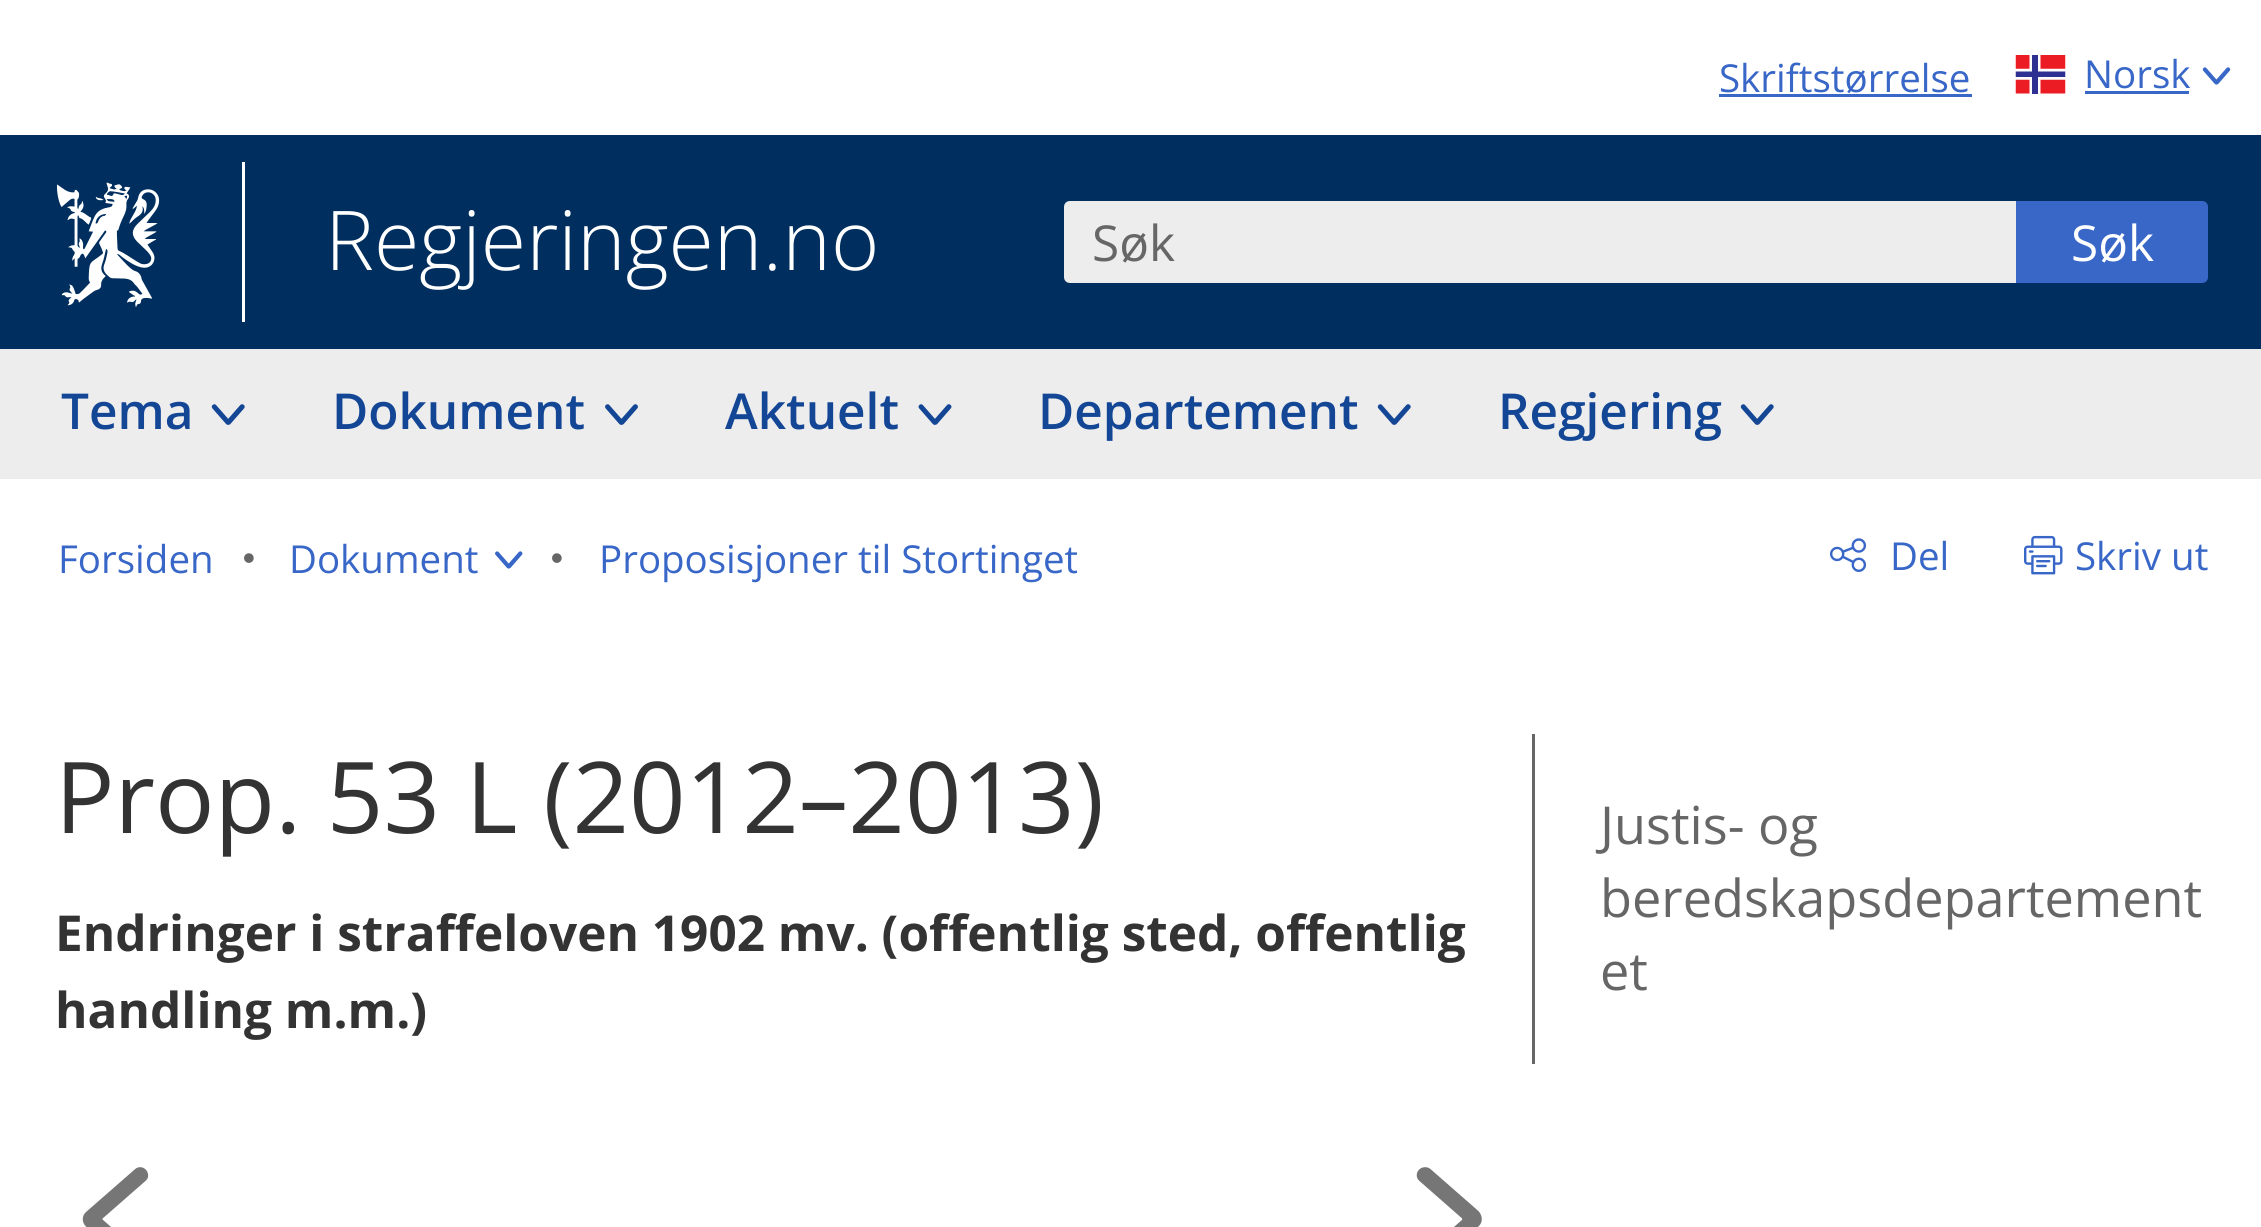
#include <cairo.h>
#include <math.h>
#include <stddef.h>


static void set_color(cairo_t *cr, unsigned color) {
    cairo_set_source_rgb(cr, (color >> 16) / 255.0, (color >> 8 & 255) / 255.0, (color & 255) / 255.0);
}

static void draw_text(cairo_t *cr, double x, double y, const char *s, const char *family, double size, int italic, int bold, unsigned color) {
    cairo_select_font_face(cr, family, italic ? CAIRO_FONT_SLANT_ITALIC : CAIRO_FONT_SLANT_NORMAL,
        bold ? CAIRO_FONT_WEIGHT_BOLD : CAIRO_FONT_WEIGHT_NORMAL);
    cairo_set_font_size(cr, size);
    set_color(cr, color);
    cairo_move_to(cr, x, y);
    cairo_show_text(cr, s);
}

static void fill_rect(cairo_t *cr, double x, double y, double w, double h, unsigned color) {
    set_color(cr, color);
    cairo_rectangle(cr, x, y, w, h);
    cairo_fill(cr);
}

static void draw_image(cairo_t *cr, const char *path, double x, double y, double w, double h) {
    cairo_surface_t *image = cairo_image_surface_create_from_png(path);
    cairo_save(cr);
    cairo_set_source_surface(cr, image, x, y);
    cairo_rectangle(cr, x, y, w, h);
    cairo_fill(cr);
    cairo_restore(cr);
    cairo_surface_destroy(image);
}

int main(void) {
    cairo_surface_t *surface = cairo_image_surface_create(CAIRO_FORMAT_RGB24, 2261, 1227);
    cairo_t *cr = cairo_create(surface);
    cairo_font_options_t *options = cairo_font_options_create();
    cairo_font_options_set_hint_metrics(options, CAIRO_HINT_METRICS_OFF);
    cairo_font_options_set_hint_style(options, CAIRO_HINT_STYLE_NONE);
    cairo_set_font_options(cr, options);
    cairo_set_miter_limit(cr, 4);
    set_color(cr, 0xFFFFFF);
    cairo_paint(cr);
    draw_text(cr, 1719, 92, "Skriftstørrelse", "Open Sans", 38.5, 0, 0, 0x3867C8);
    fill_rect(cr, 1719, 94, 253, 3, 0x3867C8);
    draw_image(cr, "assets/img1.png", 2015, 55, 51, 39);
    draw_text(cr, 2084, 88, "Norsk", "Open Sans", 38.5, 0, 0, 0x3867C8);
    fill_rect(cr, 2085, 91, 104, 3, 0x3867C8);
    draw_image(cr, "assets/img2.png", 2202, 67, 29, 18);
    fill_rect(cr, 0, 135, 2261, 214, 0x002E5E);
    draw_image(cr, "assets/img3.png", 56, 182, 104, 125);
    fill_rect(cr, 242, 162, 3, 160, 0xFFFFFF);
    draw_text(cr, 325, 270, "Regjeringen.no", "Open Sans Light", 82.5, 0, 0, 0xFFFFFF);
    fill_rect(cr, 0, 349, 2261, 130, 0xEDEDED);
    cairo_new_path(cr);
    cairo_move_to(cr, 1070, 201);
    cairo_line_to(cr, 2016, 201);
    cairo_line_to(cr, 2016, 283);
    cairo_line_to(cr, 1070, 283);
    cairo_curve_to(cr, 1066.5, 283, 1064, 280.5, 1064, 277);
    cairo_line_to(cr, 1064, 207);
    cairo_curve_to(cr, 1064, 203.5, 1066.5, 201, 1070, 201);
    cairo_close_path(cr);
    cairo_fill(cr);
    draw_text(cr, 1092, 261, "Søk", "Open Sans", 49.5, 0, 0, 0x666666);
    set_color(cr, 0x3867C8);
    cairo_new_path(cr);
    cairo_move_to(cr, 2016, 201);
    cairo_line_to(cr, 2202, 201);
    cairo_curve_to(cr, 2205.5, 201, 2208, 203.5, 2208, 207);
    cairo_line_to(cr, 2208, 277);
    cairo_curve_to(cr, 2208, 280.5, 2205.5, 283, 2202, 283);
    cairo_line_to(cr, 2016, 283);
    cairo_close_path(cr);
    cairo_fill(cr);
    draw_text(cr, 2071, 261, "Søk", "Open Sans", 49.5, 0, 0, 0xFFFFFF);
    draw_text(cr, 61, 429, "Tema", "Open Sans SemiBold", 49.5, 0, 0, 0x144696);
    draw_image(cr, "assets/img4.png", 211, 404, 34, 21);
    draw_text(cr, 332, 429, "Dokument", "Open Sans SemiBold", 49.5, 0, 0, 0x144696);
    draw_image(cr, "assets/img5.png", 605, 404, 33, 21);
    draw_text(cr, 725, 429, "Aktuelt", "Open Sans SemiBold", 49.5, 0, 0, 0x144696);
    draw_image(cr, "assets/img6.png", 918, 404, 34, 21);
    draw_text(cr, 1038, 429, "Departement", "Open Sans SemiBold", 49.5, 0, 0, 0x144696);
    draw_image(cr, "assets/img4.png", 1377, 404, 34, 21);
    draw_text(cr, 1498, 429, "Regjering", "Open Sans SemiBold", 49.5, 0, 0, 0x144696);
    draw_image(cr, "assets/img4.png", 1740, 404, 34, 21);
    draw_text(cr, 58, 573, "Forsiden", "Open Sans", 38.5, 0, 0, 0x3867C8);
    draw_image(cr, "assets/img7.png", 244, 553, 10, 10);
    draw_text(cr, 289, 573, "Dokument", "Open Sans", 38.5, 0, 0, 0x3867C8);
    draw_image(cr, "assets/img8.png", 495, 551, 28, 18);
    draw_image(cr, "assets/img7.png", 552, 553, 10, 10);
    draw_text(cr, 599, 573, "Proposisjoner til Stortinget", "Open Sans", 38.5, 0, 0, 0x3867C8);
    draw_image(cr, "assets/img9.png", 1830, 538, 37, 34);
    draw_text(cr, 1890, 570, "Del", "Open Sans", 38.5, 0, 0, 0x3867C8);
    draw_image(cr, "assets/img10.png", 2024, 535, 39, 40);
    draw_text(cr, 2075, 570, "Skriv ut", "Open Sans", 38.5, 0, 0, 0x3867C8);
    draw_text(cr, 55, 833, "Prop. 53 L (2012–2013)", "Open Sans", 99, 0, 0, 0x333333);
    draw_text(cr, 55, 951, "Endringer i straffeloven 1902 mv. (offentlig sted, offentlig", "Open Sans", 49.5, 0, 1, 0x333333);
    draw_text(cr, 55, 1028, "handling m.m.)", "Open Sans", 49.5, 0, 1, 0x333333);
    fill_rect(cr, 1532, 734, 3, 330, 0x666666);
    draw_text(cr, 1600, 844, "Justis- og", "Open Sans", 52.25, 0, 0, 0x666666);
    draw_text(cr, 1600, 917, "beredskapsdepartement", "Open Sans", 52.25, 0, 0, 0x666666);
    draw_text(cr, 1600, 990, "et", "Open Sans", 52.25, 0, 0, 0x666666);
    draw_image(cr, "assets/img11.png", 82, 1167, 67, 60);
    draw_image(cr, "assets/img12.png", 1416, 1167, 66, 60);
    cairo_surface_write_to_png(surface, "output.png");
    cairo_font_options_destroy(options);
    cairo_destroy(cr);
    cairo_surface_destroy(surface);
    return 0;
}
